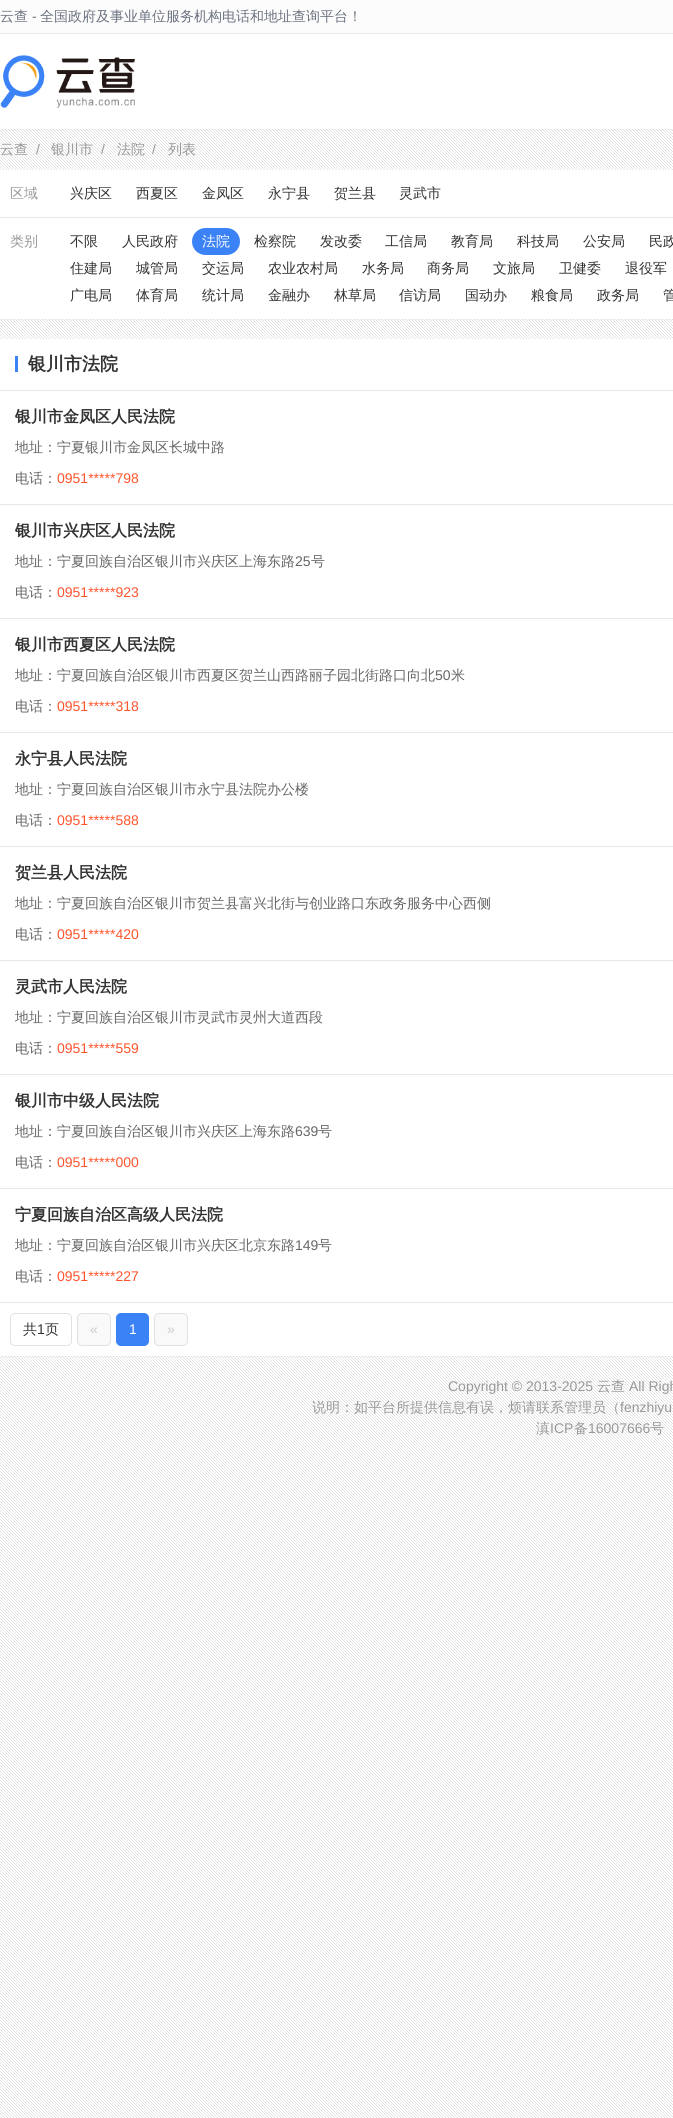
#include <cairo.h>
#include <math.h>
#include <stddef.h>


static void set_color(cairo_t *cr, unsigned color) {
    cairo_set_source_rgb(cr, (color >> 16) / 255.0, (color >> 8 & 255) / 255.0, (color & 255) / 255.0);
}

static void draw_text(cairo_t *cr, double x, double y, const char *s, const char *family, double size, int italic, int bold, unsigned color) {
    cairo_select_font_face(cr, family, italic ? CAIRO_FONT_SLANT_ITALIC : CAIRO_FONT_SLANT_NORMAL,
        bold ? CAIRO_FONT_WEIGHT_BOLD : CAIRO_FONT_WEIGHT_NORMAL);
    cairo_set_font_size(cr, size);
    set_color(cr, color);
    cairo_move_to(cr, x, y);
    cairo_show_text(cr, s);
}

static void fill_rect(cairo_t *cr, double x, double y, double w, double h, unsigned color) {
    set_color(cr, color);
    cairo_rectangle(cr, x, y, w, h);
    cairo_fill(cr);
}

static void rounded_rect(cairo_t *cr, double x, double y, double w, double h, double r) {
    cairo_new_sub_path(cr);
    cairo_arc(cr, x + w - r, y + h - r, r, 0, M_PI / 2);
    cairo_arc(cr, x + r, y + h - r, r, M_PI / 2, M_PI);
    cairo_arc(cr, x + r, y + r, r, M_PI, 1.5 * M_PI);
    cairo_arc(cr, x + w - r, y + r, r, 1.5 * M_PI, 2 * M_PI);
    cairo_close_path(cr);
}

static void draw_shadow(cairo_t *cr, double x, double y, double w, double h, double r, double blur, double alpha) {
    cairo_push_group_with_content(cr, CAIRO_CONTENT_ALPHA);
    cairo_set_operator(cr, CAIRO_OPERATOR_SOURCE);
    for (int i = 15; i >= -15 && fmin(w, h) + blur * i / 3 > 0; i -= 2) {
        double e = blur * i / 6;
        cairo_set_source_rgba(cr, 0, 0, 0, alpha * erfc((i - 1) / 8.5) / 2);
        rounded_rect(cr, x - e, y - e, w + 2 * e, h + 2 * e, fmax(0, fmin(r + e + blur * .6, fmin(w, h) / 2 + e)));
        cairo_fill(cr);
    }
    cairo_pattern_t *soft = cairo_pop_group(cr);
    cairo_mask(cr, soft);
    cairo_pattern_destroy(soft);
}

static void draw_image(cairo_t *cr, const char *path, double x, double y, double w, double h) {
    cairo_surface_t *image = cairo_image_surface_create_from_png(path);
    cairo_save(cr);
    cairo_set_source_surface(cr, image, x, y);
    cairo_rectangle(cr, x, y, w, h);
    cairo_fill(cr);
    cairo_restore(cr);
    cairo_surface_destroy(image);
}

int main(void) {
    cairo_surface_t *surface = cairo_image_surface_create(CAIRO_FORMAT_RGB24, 673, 2118);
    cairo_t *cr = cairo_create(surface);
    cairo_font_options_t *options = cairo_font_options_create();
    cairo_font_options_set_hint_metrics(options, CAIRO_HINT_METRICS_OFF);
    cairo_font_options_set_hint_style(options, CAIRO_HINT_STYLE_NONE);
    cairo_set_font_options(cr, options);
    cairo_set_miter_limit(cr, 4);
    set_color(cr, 0xFFFFFF);
    cairo_paint(cr);
    draw_image(cr, "assets/img1.png", 0, 129, 673, 1989);
    set_color(cr, 0x000000);
    draw_shadow(cr, 0, 1, 673, 129, 0, 1, 0.05);
    fill_rect(cr, 0, 34, 673, 95, 0xFFFFFF);
    fill_rect(cr, 0, 1, 673, 32, 0xFCFCFC);
    fill_rect(cr, 0, 33, 673, 1, 0xE8E8E8);
    draw_text(cr, 0, 21, "云查", "WenQuanYi Zen Hei Medium", 14, 0, 0, 0x6B7280);
    draw_text(cr, 32, 21, "-", "Liberation Sans", 14, 0, 0, 0x6B7280);
    draw_text(cr, 40, 21, "全国政府及事业单位服务机构电话和地址查询平台！", "WenQuanYi Zen Hei Medium", 14, 0, 0, 0x6B7280);
    draw_image(cr, "assets/img2.png", 0, 55, 135, 53);
    draw_text(cr, 0, 154, "云查", "WenQuanYi Zen Hei Medium", 14, 0, 0, 0x999999);
    draw_text(cr, 36, 154, "/", "Liberation Sans", 14, 0, 0, 0x999999);
    draw_text(cr, 51, 154, "银川市", "WenQuanYi Zen Hei Medium", 14, 0, 0, 0x999999);
    draw_text(cr, 101, 154, "/", "Liberation Sans", 14, 0, 0, 0x999999);
    draw_text(cr, 117, 154, "法院", "WenQuanYi Zen Hei Medium", 14, 0, 0, 0x999999);
    draw_text(cr, 152, 154, "/", "Liberation Sans", 14, 0, 0, 0x999999);
    draw_text(cr, 168, 154, "列表", "WenQuanYi Zen Hei Medium", 14, 0, 0, 0x999999);
    set_color(cr, 0x000000);
    draw_shadow(cr, 0, 171, 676, 149, 0, 1, 0.05);
    fill_rect(cr, 0, 170, 673, 149, 0xFFFFFF);
    fill_rect(cr, 0, 217, 673, 1, 0xE8E8E8);
    draw_text(cr, 10, 198, "区域", "WenQuanYi Zen Hei Medium", 14, 0, 0, 0x999999);
    draw_text(cr, 70, 198, "兴庆区", "WenQuanYi Zen Hei Medium", 14, 0, 0, 0x333333);
    draw_text(cr, 136, 198, "西夏区", "WenQuanYi Zen Hei Medium", 14, 0, 0, 0x333333);
    draw_text(cr, 202, 198, "金凤区", "WenQuanYi Zen Hei Medium", 14, 0, 0, 0x333333);
    draw_text(cr, 268, 198, "永宁县", "WenQuanYi Zen Hei Medium", 14, 0, 0, 0x333333);
    draw_text(cr, 334, 198, "贺兰县", "WenQuanYi Zen Hei Medium", 14, 0, 0, 0x333333);
    draw_text(cr, 399, 198, "灵武市", "WenQuanYi Zen Hei Medium", 14, 0, 0, 0x333333);
    draw_text(cr, 10, 246, "类别", "WenQuanYi Zen Hei Medium", 14, 0, 0, 0x999999);
    draw_text(cr, 70, 246, "不限", "WenQuanYi Zen Hei Medium", 14, 0, 0, 0x333333);
    draw_text(cr, 122, 246, "人民政府", "WenQuanYi Zen Hei Medium", 14, 0, 0, 0x333333);
    set_color(cr, 0x3B82F6);
    rounded_rect(cr, 192, 228, 48, 27, 13.5);
    cairo_fill(cr);
    draw_text(cr, 202, 246, "法院", "WenQuanYi Zen Hei Medium", 14, 0, 0, 0xFFFFFF);
    draw_text(cr, 254, 246, "检察院", "WenQuanYi Zen Hei Medium", 14, 0, 0, 0x333333);
    draw_text(cr, 320, 246, "发改委", "WenQuanYi Zen Hei Medium", 14, 0, 0, 0x333333);
    draw_text(cr, 385, 246, "工信局", "WenQuanYi Zen Hei Medium", 14, 0, 0, 0x333333);
    draw_text(cr, 451, 246, "教育局", "WenQuanYi Zen Hei Medium", 14, 0, 0, 0x333333);
    draw_text(cr, 517, 246, "科技局", "WenQuanYi Zen Hei Medium", 14, 0, 0, 0x333333);
    draw_text(cr, 583, 246, "公安局", "WenQuanYi Zen Hei Medium", 14, 0, 0, 0x333333);
    draw_text(cr, 649, 246, "民政", "WenQuanYi Zen Hei Medium", 14, 0, 0, 0x333333);
    draw_text(cr, 70, 273, "住建局", "WenQuanYi Zen Hei Medium", 14, 0, 0, 0x333333);
    draw_text(cr, 136, 273, "城管局", "WenQuanYi Zen Hei Medium", 14, 0, 0, 0x333333);
    draw_text(cr, 202, 273, "交运局", "WenQuanYi Zen Hei Medium", 14, 0, 0, 0x333333);
    draw_text(cr, 268, 273, "农业农村局", "WenQuanYi Zen Hei Medium", 14, 0, 0, 0x333333);
    draw_text(cr, 362, 273, "水务局", "WenQuanYi Zen Hei Medium", 14, 0, 0, 0x333333);
    draw_text(cr, 427, 273, "商务局", "WenQuanYi Zen Hei Medium", 14, 0, 0, 0x333333);
    draw_text(cr, 493, 273, "文旅局", "WenQuanYi Zen Hei Medium", 14, 0, 0, 0x333333);
    draw_text(cr, 559, 273, "卫健委", "WenQuanYi Zen Hei Medium", 14, 0, 0, 0x333333);
    draw_text(cr, 625, 273, "退役军", "WenQuanYi Zen Hei Medium", 14, 0, 0, 0x333333);
    draw_text(cr, 70, 300, "广电局", "WenQuanYi Zen Hei Medium", 14, 0, 0, 0x333333);
    draw_text(cr, 136, 300, "体育局", "WenQuanYi Zen Hei Medium", 14, 0, 0, 0x333333);
    draw_text(cr, 202, 300, "统计局", "WenQuanYi Zen Hei Medium", 14, 0, 0, 0x333333);
    draw_text(cr, 268, 300, "金融办", "WenQuanYi Zen Hei Medium", 14, 0, 0, 0x333333);
    draw_text(cr, 334, 300, "林草局", "WenQuanYi Zen Hei Medium", 14, 0, 0, 0x333333);
    draw_text(cr, 399, 300, "信访局", "WenQuanYi Zen Hei Medium", 14, 0, 0, 0x333333);
    draw_text(cr, 465, 300, "国动办", "WenQuanYi Zen Hei Medium", 14, 0, 0, 0x333333);
    draw_text(cr, 531, 300, "粮食局", "WenQuanYi Zen Hei Medium", 14, 0, 0, 0x333333);
    draw_text(cr, 597, 300, "政务局", "WenQuanYi Zen Hei Medium", 14, 0, 0, 0x333333);
    draw_text(cr, 663, 300, "管", "WenQuanYi Zen Hei Medium", 14, 0, 0, 0x333333);
    set_color(cr, 0x000000);
    draw_shadow(cr, 0, 340, 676, 1017, 0, 1, 0.05);
    fill_rect(cr, 0, 339, 673, 1017, 0xFFFFFF);
    fill_rect(cr, 0, 390, 673, 1, 0xE8E8E8);
    fill_rect(cr, 15, 356, 3, 16, 0x3B82F6);
    draw_text(cr, 28, 370, "银川市法院", "WenQuanYi Zen Hei", 18, 0, 1, 0x333333);
    fill_rect(cr, 0, 504, 673, 1, 0xE8E8E8);
    draw_text(cr, 15, 422, "银川市金凤区人民法院", "WenQuanYi Zen Hei", 16, 0, 1, 0x333333);
    draw_text(cr, 15, 452, "地址：宁夏银川市金凤区长城中路", "WenQuanYi Zen Hei Medium", 14, 0, 0, 0x666666);
    draw_text(cr, 15, 483, "电话：", "WenQuanYi Zen Hei Medium", 14, 0, 0, 0x666666);
    draw_text(cr, 57, 483, "0951*****798", "Liberation Sans", 14, 0, 0, 0xFF552E);
    fill_rect(cr, 0, 618, 673, 1, 0xE8E8E8);
    draw_text(cr, 15, 536, "银川市兴庆区人民法院", "WenQuanYi Zen Hei", 16, 0, 1, 0x333333);
    draw_text(cr, 15, 566, "地址：宁夏回族自治区银川市兴庆区上海东路", "WenQuanYi Zen Hei Medium", 14, 0, 0, 0x666666);
    draw_text(cr, 295, 566, "25", "Liberation Sans", 14, 0, 0, 0x666666);
    draw_text(cr, 311, 566, "号", "WenQuanYi Zen Hei Medium", 14, 0, 0, 0x666666);
    draw_text(cr, 15, 597, "电话：", "WenQuanYi Zen Hei Medium", 14, 0, 0, 0x666666);
    draw_text(cr, 57, 597, "0951*****923", "Liberation Sans", 14, 0, 0, 0xFF552E);
    fill_rect(cr, 0, 732, 673, 1, 0xE8E8E8);
    draw_text(cr, 15, 650, "银川市西夏区人民法院", "WenQuanYi Zen Hei", 16, 0, 1, 0x333333);
    draw_text(cr, 15, 680, "地址：宁夏回族自治区银川市西夏区贺兰山西路丽子园北街路口向北", "WenQuanYi Zen Hei Medium", 14, 0, 0, 0x666666);
    draw_text(cr, 435, 680, "50", "Liberation Sans", 14, 0, 0, 0x666666);
    draw_text(cr, 451, 680, "米", "WenQuanYi Zen Hei Medium", 14, 0, 0, 0x666666);
    draw_text(cr, 15, 711, "电话：", "WenQuanYi Zen Hei Medium", 14, 0, 0, 0x666666);
    draw_text(cr, 57, 711, "0951*****318", "Liberation Sans", 14, 0, 0, 0xFF552E);
    fill_rect(cr, 0, 846, 673, 1, 0xE8E8E8);
    draw_text(cr, 15, 764, "永宁县人民法院", "WenQuanYi Zen Hei", 16, 0, 1, 0x333333);
    draw_text(cr, 15, 794, "地址：宁夏回族自治区银川市永宁县法院办公楼", "WenQuanYi Zen Hei Medium", 14, 0, 0, 0x666666);
    draw_text(cr, 15, 825, "电话：", "WenQuanYi Zen Hei Medium", 14, 0, 0, 0x666666);
    draw_text(cr, 57, 825, "0951*****588", "Liberation Sans", 14, 0, 0, 0xFF552E);
    fill_rect(cr, 0, 960, 673, 1, 0xE8E8E8);
    draw_text(cr, 15, 878, "贺兰县人民法院", "WenQuanYi Zen Hei", 16, 0, 1, 0x333333);
    draw_text(cr, 15, 908, "地址：宁夏回族自治区银川市贺兰县富兴北街与创业路口东政务服务中心西侧", "WenQuanYi Zen Hei Medium", 14, 0, 0, 0x666666);
    draw_text(cr, 15, 939, "电话：", "WenQuanYi Zen Hei Medium", 14, 0, 0, 0x666666);
    draw_text(cr, 57, 939, "0951*****420", "Liberation Sans", 14, 0, 0, 0xFF552E);
    fill_rect(cr, 0, 1074, 673, 1, 0xE8E8E8);
    draw_text(cr, 15, 992, "灵武市人民法院", "WenQuanYi Zen Hei", 16, 0, 1, 0x333333);
    draw_text(cr, 15, 1022, "地址：宁夏回族自治区银川市灵武市灵州大道西段", "WenQuanYi Zen Hei Medium", 14, 0, 0, 0x666666);
    draw_text(cr, 15, 1053, "电话：", "WenQuanYi Zen Hei Medium", 14, 0, 0, 0x666666);
    draw_text(cr, 57, 1053, "0951*****559", "Liberation Sans", 14, 0, 0, 0xFF552E);
    fill_rect(cr, 0, 1188, 673, 1, 0xE8E8E8);
    draw_text(cr, 15, 1106, "银川市中级人民法院", "WenQuanYi Zen Hei", 16, 0, 1, 0x333333);
    draw_text(cr, 15, 1136, "地址：宁夏回族自治区银川市兴庆区上海东路", "WenQuanYi Zen Hei Medium", 14, 0, 0, 0x666666);
    draw_text(cr, 295, 1136, "639", "Liberation Sans", 14, 0, 0, 0x666666);
    draw_text(cr, 318, 1136, "号", "WenQuanYi Zen Hei Medium", 14, 0, 0, 0x666666);
    draw_text(cr, 15, 1167, "电话：", "WenQuanYi Zen Hei Medium", 14, 0, 0, 0x666666);
    draw_text(cr, 57, 1167, "0951*****000", "Liberation Sans", 14, 0, 0, 0xFF552E);
    fill_rect(cr, 0, 1302, 673, 1, 0xE8E8E8);
    draw_text(cr, 15, 1220, "宁夏回族自治区高级人民法院", "WenQuanYi Zen Hei", 16, 0, 1, 0x333333);
    draw_text(cr, 15, 1250, "地址：宁夏回族自治区银川市兴庆区北京东路", "WenQuanYi Zen Hei Medium", 14, 0, 0, 0x666666);
    draw_text(cr, 295, 1250, "149", "Liberation Sans", 14, 0, 0, 0x666666);
    draw_text(cr, 318, 1250, "号", "WenQuanYi Zen Hei Medium", 14, 0, 0, 0x666666);
    draw_text(cr, 15, 1281, "电话：", "WenQuanYi Zen Hei Medium", 14, 0, 0, 0x666666);
    draw_text(cr, 57, 1281, "0951*****227", "Liberation Sans", 14, 0, 0, 0xFF552E);
    rounded_rect(cr, 10.5, 1313.5, 61, 32, 4.5);
    set_color(cr, 0xE1E1E1);
    cairo_set_line_width(cr, 1);
    cairo_stroke(cr);
    draw_text(cr, 23, 1334, "共", "WenQuanYi Zen Hei Medium", 14, 0, 0, 0x333333);
    draw_text(cr, 37, 1334, "1", "Liberation Sans", 14, 0, 0, 0x333333);
    draw_text(cr, 45, 1334, "页", "WenQuanYi Zen Hei Medium", 14, 0, 0, 0x333333);
    set_color(cr, 0xF9F9F9);
    rounded_rect(cr, 77.5, 1313.5, 33, 32, 4.5);
    cairo_fill_preserve(cr);
    set_color(cr, 0xE1E1E1);
    cairo_stroke(cr);
    draw_text(cr, 90, 1334, "«", "Liberation Sans", 14, 0, 0, 0xCCCCCC);
    set_color(cr, 0x3B82F6);
    rounded_rect(cr, 116.5, 1313.5, 32, 32, 4.5);
    cairo_fill_preserve(cr);
    cairo_stroke(cr);
    draw_text(cr, 129, 1334, "1", "Liberation Sans", 14, 0, 0, 0xFFFFFF);
    set_color(cr, 0xF9F9F9);
    rounded_rect(cr, 154.5, 1313.5, 33, 32, 4.5);
    cairo_fill_preserve(cr);
    set_color(cr, 0xE1E1E1);
    cairo_stroke(cr);
    draw_text(cr, 167, 1334, "»", "Liberation Sans", 14, 0, 0, 0xCCCCCC);
    draw_text(cr, 448, 1391, "Copyright © 2013-2025", "Liberation Sans", 14, 0, 0, 0x999999);
    draw_text(cr, 597, 1391, "云查", "WenQuanYi Zen Hei Medium", 14, 0, 0, 0x999999);
    draw_text(cr, 629, 1391, "All Righ", "Liberation Sans", 14, 0, 0, 0x999999);
    draw_text(cr, 312, 1412, "说明：如平台所提供信息有误，烦请联系管理员（", "WenQuanYi Zen Hei Medium", 14, 0, 0, 0x999999);
    draw_text(cr, 620, 1412, "fenzhiyu", "Liberation Sans", 14, 0, 0, 0x999999);
    draw_text(cr, 536, 1433, "滇", "WenQuanYi Zen Hei Medium", 14, 0, 0, 0x999999);
    draw_text(cr, 550, 1433, "ICP", "Liberation Sans", 14, 0, 0, 0x999999);
    draw_text(cr, 574, 1433, "备", "WenQuanYi Zen Hei Medium", 14, 0, 0, 0x999999);
    draw_text(cr, 588, 1433, "16007666", "Liberation Sans", 14, 0, 0, 0x999999);
    draw_text(cr, 650, 1433, "号", "WenQuanYi Zen Hei Medium", 14, 0, 0, 0x999999);
    cairo_surface_write_to_png(surface, "output.png");
    cairo_font_options_destroy(options);
    cairo_destroy(cr);
    cairo_surface_destroy(surface);
    return 0;
}
